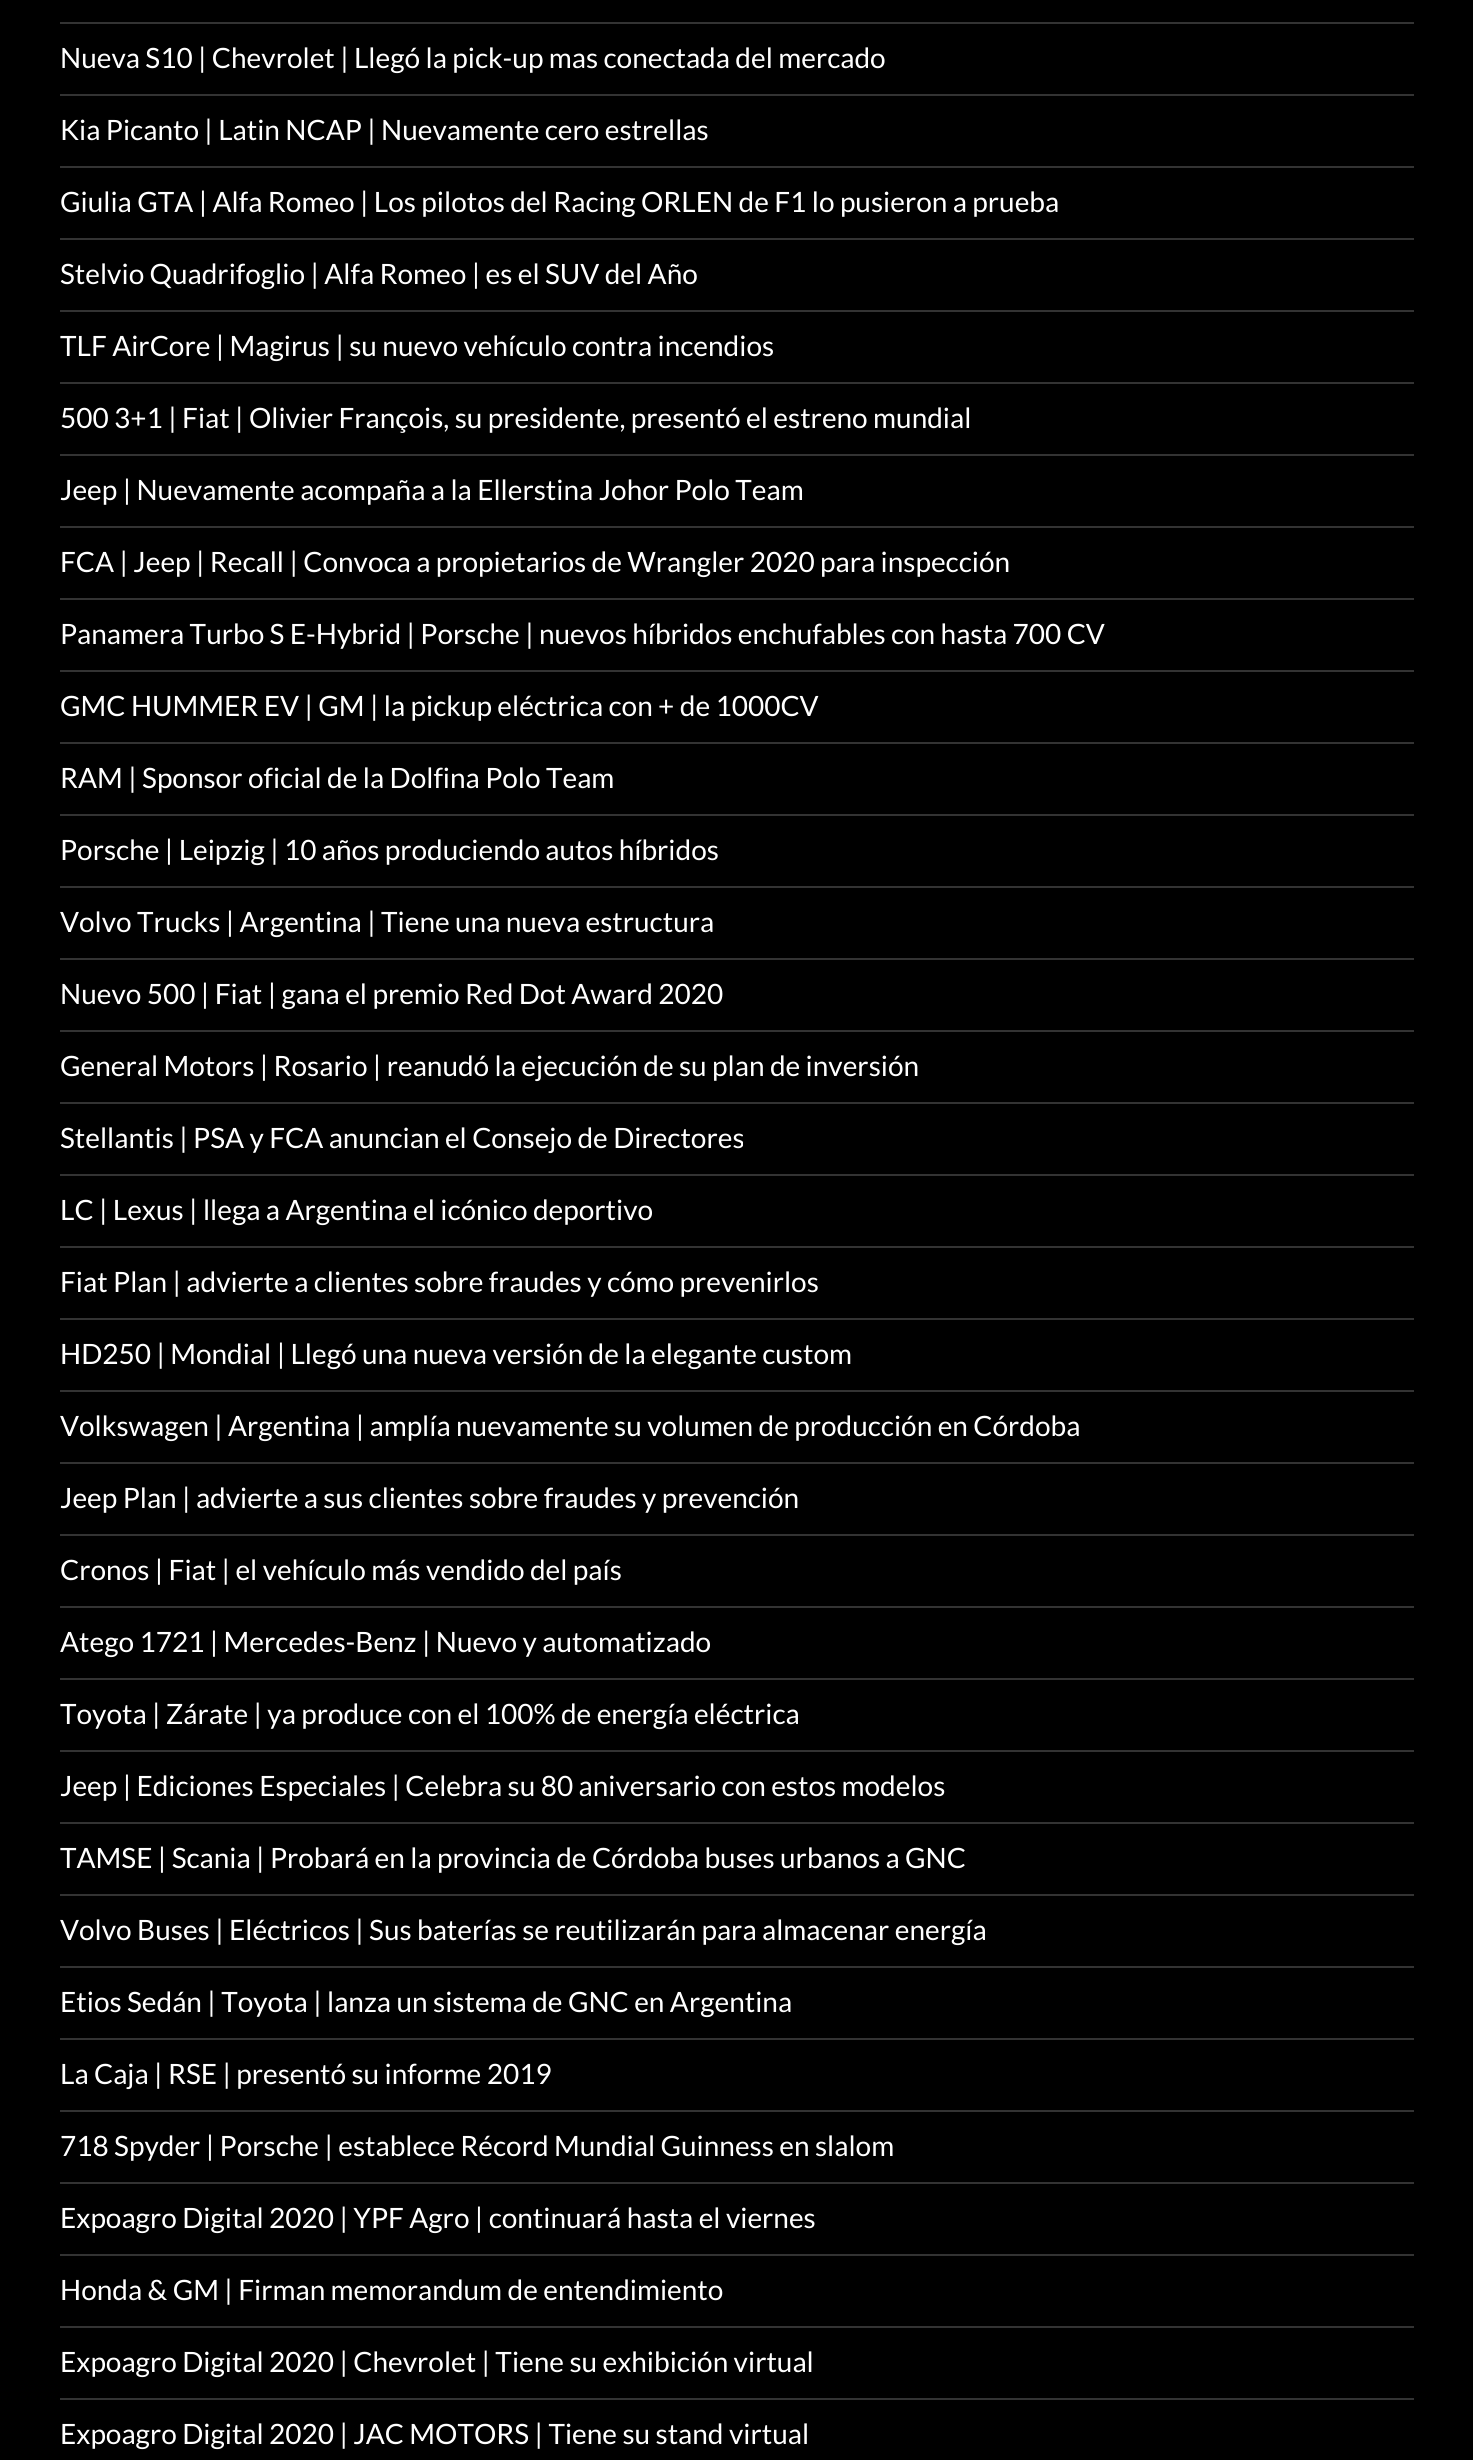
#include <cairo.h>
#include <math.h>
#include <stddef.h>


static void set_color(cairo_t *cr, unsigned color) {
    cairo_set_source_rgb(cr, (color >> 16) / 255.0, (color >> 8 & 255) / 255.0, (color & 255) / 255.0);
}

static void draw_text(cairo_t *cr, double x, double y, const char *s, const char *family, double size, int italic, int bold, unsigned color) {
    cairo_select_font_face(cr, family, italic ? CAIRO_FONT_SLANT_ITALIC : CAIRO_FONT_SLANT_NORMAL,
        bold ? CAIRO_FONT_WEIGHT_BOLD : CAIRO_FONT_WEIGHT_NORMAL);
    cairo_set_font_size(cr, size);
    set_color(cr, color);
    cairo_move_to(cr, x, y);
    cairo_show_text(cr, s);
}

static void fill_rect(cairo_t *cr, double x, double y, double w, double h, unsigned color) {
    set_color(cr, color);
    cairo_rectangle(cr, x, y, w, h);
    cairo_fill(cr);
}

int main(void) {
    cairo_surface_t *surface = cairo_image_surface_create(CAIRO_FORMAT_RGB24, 1473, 2460);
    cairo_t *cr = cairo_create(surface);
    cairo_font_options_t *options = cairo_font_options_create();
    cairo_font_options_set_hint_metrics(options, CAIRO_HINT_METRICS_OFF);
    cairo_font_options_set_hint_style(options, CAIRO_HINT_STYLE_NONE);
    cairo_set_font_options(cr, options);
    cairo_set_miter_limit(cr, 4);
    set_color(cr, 0x000000);
    cairo_paint(cr);
    fill_rect(cr, 60, 22, 1354, 2, 0x333333);
    draw_text(cr, 60, 68, "Nueva S10 | Chevrolet | Llegó la pick-up mas conectada del mercado", "Lato", 28, 0, 0, 0xFFFFFF);
    fill_rect(cr, 60, 94, 1354, 2, 0x333333);
    draw_text(cr, 60, 140, "Kia Picanto | Latin NCAP | Nuevamente cero estrellas", "Lato", 28, 0, 0, 0xFFFFFF);
    fill_rect(cr, 60, 166, 1354, 2, 0x333333);
    draw_text(cr, 60, 212, "Giulia GTA | Alfa Romeo | Los pilotos del Racing ORLEN de F1 lo pusieron a prueba", "Lato", 28, 0, 0, 0xFFFFFF);
    fill_rect(cr, 60, 238, 1354, 2, 0x333333);
    draw_text(cr, 60, 284, "Stelvio Quadrifoglio | Alfa Romeo | es el SUV del Año", "Lato", 28, 0, 0, 0xFFFFFF);
    fill_rect(cr, 60, 310, 1354, 2, 0x333333);
    draw_text(cr, 60, 356, "TLF AirCore | Magirus | su nuevo vehículo contra incendios", "Lato", 28, 0, 0, 0xFFFFFF);
    fill_rect(cr, 60, 382, 1354, 2, 0x333333);
    draw_text(cr, 60, 428, "500 3+1 | Fiat | Olivier François, su presidente, presentó el estreno mundial", "Lato", 28, 0, 0, 0xFFFFFF);
    fill_rect(cr, 60, 454, 1354, 2, 0x333333);
    draw_text(cr, 60, 500, "Jeep | Nuevamente acompaña a la Ellerstina Johor Polo Team", "Lato", 28, 0, 0, 0xFFFFFF);
    fill_rect(cr, 60, 526, 1354, 2, 0x333333);
    draw_text(cr, 60, 572, "FCA | Jeep | Recall | Convoca a propietarios de Wrangler 2020 para inspección", "Lato", 28, 0, 0, 0xFFFFFF);
    fill_rect(cr, 60, 598, 1354, 2, 0x333333);
    draw_text(cr, 60, 644, "Panamera Turbo S E-Hybrid | Porsche | nuevos híbridos enchufables con hasta 700 CV", "Lato", 28, 0, 0, 0xFFFFFF);
    fill_rect(cr, 60, 670, 1354, 2, 0x333333);
    draw_text(cr, 60, 716, "GMC HUMMER EV | GM | la pickup eléctrica con + de 1000CV", "Lato", 28, 0, 0, 0xFFFFFF);
    fill_rect(cr, 60, 742, 1354, 2, 0x333333);
    draw_text(cr, 60, 788, "RAM | Sponsor oficial de la Dolfina Polo Team", "Lato", 28, 0, 0, 0xFFFFFF);
    fill_rect(cr, 60, 814, 1354, 2, 0x333333);
    draw_text(cr, 60, 860, "Porsche | Leipzig | 10 años produciendo autos híbridos", "Lato", 28, 0, 0, 0xFFFFFF);
    fill_rect(cr, 60, 886, 1354, 2, 0x333333);
    draw_text(cr, 60, 932, "Volvo Trucks | Argentina | Tiene una nueva estructura", "Lato", 28, 0, 0, 0xFFFFFF);
    fill_rect(cr, 60, 958, 1354, 2, 0x333333);
    draw_text(cr, 60, 1004, "Nuevo 500 | Fiat | gana el premio Red Dot Award 2020", "Lato", 28, 0, 0, 0xFFFFFF);
    fill_rect(cr, 60, 1030, 1354, 2, 0x333333);
    draw_text(cr, 60, 1076, "General Motors | Rosario | reanudó la ejecución de su plan de inversión", "Lato", 28, 0, 0, 0xFFFFFF);
    fill_rect(cr, 60, 1102, 1354, 2, 0x333333);
    draw_text(cr, 60, 1148, "Stellantis | PSA y FCA anuncian el Consejo de Directores", "Lato", 28, 0, 0, 0xFFFFFF);
    fill_rect(cr, 60, 1174, 1354, 2, 0x333333);
    draw_text(cr, 60, 1220, "LC | Lexus | llega a Argentina el icónico deportivo", "Lato", 28, 0, 0, 0xFFFFFF);
    fill_rect(cr, 60, 1246, 1354, 2, 0x333333);
    draw_text(cr, 60, 1292, "Fiat Plan | advierte a clientes sobre fraudes y cómo prevenirlos", "Lato", 28, 0, 0, 0xFFFFFF);
    fill_rect(cr, 60, 1318, 1354, 2, 0x333333);
    draw_text(cr, 60, 1364, "HD250 | Mondial | Llegó una nueva versión de la elegante custom", "Lato", 28, 0, 0, 0xFFFFFF);
    fill_rect(cr, 60, 1390, 1354, 2, 0x333333);
    draw_text(cr, 60, 1436, "Volkswagen | Argentina | amplía nuevamente su volumen de producción en Córdoba", "Lato", 28, 0, 0, 0xFFFFFF);
    fill_rect(cr, 60, 1462, 1354, 2, 0x333333);
    draw_text(cr, 60, 1508, "Jeep Plan | advierte a sus clientes sobre fraudes y prevención", "Lato", 28, 0, 0, 0xFFFFFF);
    fill_rect(cr, 60, 1534, 1354, 2, 0x333333);
    draw_text(cr, 60, 1580, "Cronos | Fiat | el vehículo más vendido del país", "Lato", 28, 0, 0, 0xFFFFFF);
    fill_rect(cr, 60, 1606, 1354, 2, 0x333333);
    draw_text(cr, 60, 1652, "Atego 1721 | Mercedes-Benz | Nuevo y automatizado", "Lato", 28, 0, 0, 0xFFFFFF);
    fill_rect(cr, 60, 1678, 1354, 2, 0x333333);
    draw_text(cr, 60, 1724, "Toyota | Zárate | ya produce con el 100% de energía eléctrica", "Lato", 28, 0, 0, 0xFFFFFF);
    fill_rect(cr, 60, 1750, 1354, 2, 0x333333);
    draw_text(cr, 60, 1796, "Jeep | Ediciones Especiales | Celebra su 80 aniversario con estos modelos", "Lato", 28, 0, 0, 0xFFFFFF);
    fill_rect(cr, 60, 1822, 1354, 2, 0x333333);
    draw_text(cr, 60, 1868, "TAMSE | Scania | Probará en la provincia de Córdoba buses urbanos a GNC", "Lato", 28, 0, 0, 0xFFFFFF);
    fill_rect(cr, 60, 1894, 1354, 2, 0x333333);
    draw_text(cr, 60, 1940, "Volvo Buses | Eléctricos | Sus baterías se reutilizarán para almacenar energía", "Lato", 28, 0, 0, 0xFFFFFF);
    fill_rect(cr, 60, 1966, 1354, 2, 0x333333);
    draw_text(cr, 60, 2012, "Etios Sedán | Toyota | lanza un sistema de GNC en Argentina", "Lato", 28, 0, 0, 0xFFFFFF);
    fill_rect(cr, 60, 2038, 1354, 2, 0x333333);
    draw_text(cr, 60, 2084, "La Caja | RSE | presentó su informe 2019", "Lato", 28, 0, 0, 0xFFFFFF);
    fill_rect(cr, 60, 2110, 1354, 2, 0x333333);
    draw_text(cr, 60, 2156, "718 Spyder | Porsche | establece Récord Mundial Guinness en slalom", "Lato", 28, 0, 0, 0xFFFFFF);
    fill_rect(cr, 60, 2182, 1354, 2, 0x333333);
    draw_text(cr, 60, 2228, "Expoagro Digital 2020 | YPF Agro | continuará hasta el viernes", "Lato", 28, 0, 0, 0xFFFFFF);
    fill_rect(cr, 60, 2254, 1354, 2, 0x333333);
    draw_text(cr, 60, 2300, "Honda & GM | Firman memorandum de entendimiento", "Lato", 28, 0, 0, 0xFFFFFF);
    fill_rect(cr, 60, 2326, 1354, 2, 0x333333);
    draw_text(cr, 60, 2372, "Expoagro Digital 2020 | Chevrolet | Tiene su exhibición virtual", "Lato", 28, 0, 0, 0xFFFFFF);
    fill_rect(cr, 60, 2398, 1354, 2, 0x333333);
    draw_text(cr, 60, 2444, "Expoagro Digital 2020 | JAC MOTORS | Tiene su stand virtual", "Lato", 28, 0, 0, 0xFFFFFF);
    cairo_surface_write_to_png(surface, "output.png");
    cairo_font_options_destroy(options);
    cairo_destroy(cr);
    cairo_surface_destroy(surface);
    return 0;
}
